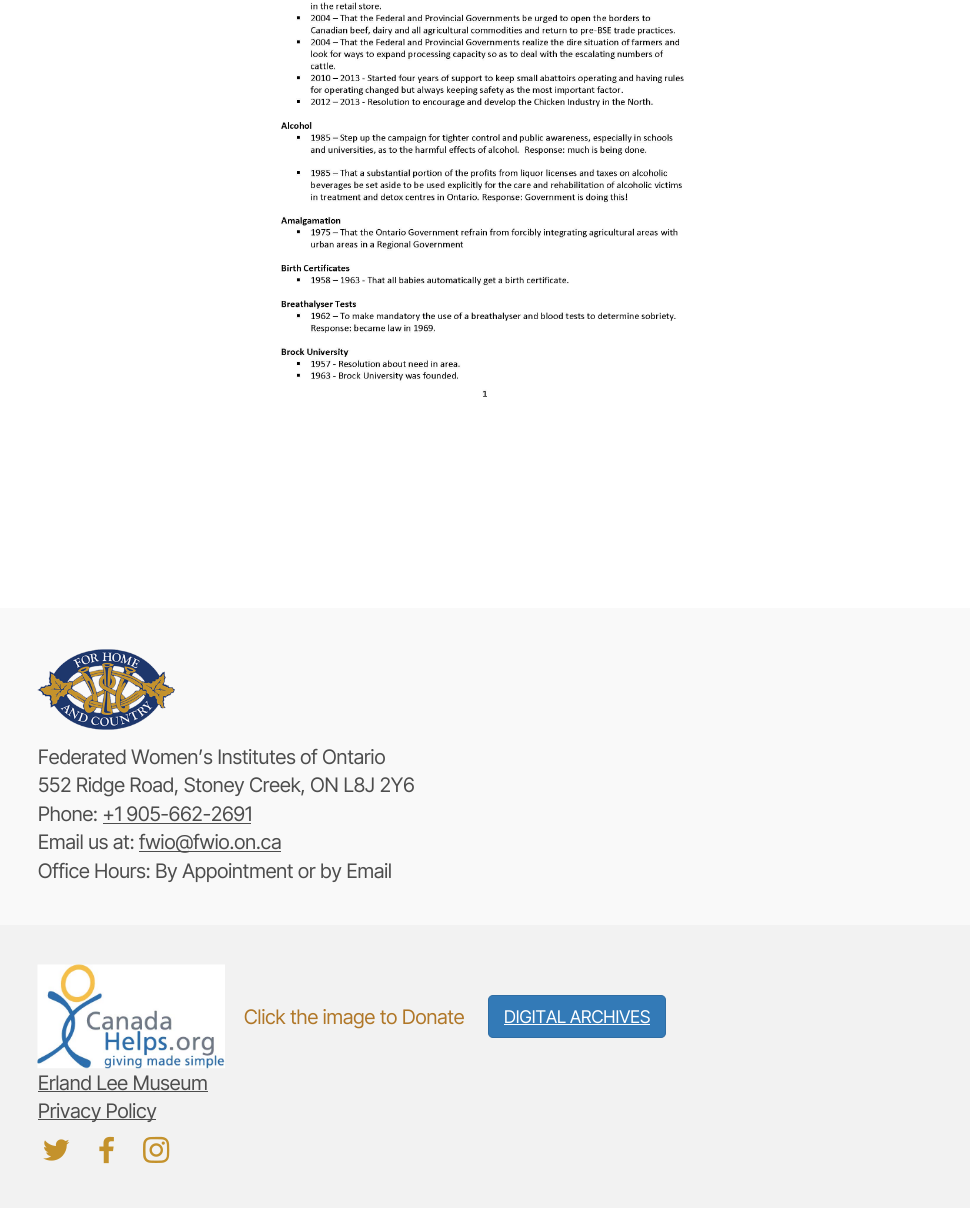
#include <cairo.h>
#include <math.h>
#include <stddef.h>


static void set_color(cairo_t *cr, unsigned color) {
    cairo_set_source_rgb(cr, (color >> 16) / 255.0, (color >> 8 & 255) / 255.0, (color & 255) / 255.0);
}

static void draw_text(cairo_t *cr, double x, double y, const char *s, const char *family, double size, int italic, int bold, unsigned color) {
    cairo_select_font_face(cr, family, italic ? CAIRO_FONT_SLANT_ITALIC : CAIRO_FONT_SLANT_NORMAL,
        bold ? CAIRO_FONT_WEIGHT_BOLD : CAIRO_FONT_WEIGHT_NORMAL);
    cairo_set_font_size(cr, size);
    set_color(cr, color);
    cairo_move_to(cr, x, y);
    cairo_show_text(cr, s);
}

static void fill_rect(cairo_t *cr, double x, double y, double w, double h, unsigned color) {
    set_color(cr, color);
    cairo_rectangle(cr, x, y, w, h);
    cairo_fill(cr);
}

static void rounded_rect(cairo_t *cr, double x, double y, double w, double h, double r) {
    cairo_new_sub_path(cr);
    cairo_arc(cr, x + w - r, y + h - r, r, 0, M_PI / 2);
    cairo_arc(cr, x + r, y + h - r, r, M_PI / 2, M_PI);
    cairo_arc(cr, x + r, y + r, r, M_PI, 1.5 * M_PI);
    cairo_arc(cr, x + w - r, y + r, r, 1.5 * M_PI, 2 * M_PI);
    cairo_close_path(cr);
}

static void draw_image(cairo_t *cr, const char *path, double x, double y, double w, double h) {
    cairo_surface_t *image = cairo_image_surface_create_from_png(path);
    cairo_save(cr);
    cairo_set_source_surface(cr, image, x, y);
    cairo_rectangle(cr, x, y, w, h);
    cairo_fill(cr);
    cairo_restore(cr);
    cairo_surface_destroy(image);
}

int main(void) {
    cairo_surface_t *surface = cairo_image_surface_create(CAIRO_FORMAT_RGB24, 970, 1208);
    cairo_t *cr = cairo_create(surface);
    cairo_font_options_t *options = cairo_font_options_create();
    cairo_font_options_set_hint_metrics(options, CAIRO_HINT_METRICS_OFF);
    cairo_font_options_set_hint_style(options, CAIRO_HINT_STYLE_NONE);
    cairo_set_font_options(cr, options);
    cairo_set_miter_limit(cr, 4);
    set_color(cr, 0xFFFFFF);
    cairo_paint(cr);
    draw_image(cr, "assets/img1.png", 280, 2, 404, 395);
    fill_rect(cr, 0, 608, 970, 317, 0xF9F9F9);
    draw_image(cr, "assets/img2.png", 37, 649, 138, 81);
    draw_text(cr, 38, 764, "Federated Women’s Institutes of Ontario", "Inter Tight", 20, 0, 0, 0x4D4D4D);
    draw_text(cr, 38, 792, "552 Ridge Road, Stoney Creek, ON L8J 2Y6", "Inter Tight", 20, 0, 0, 0x4D4D4D);
    draw_text(cr, 38, 821, "Phone: +1 905-662-2691", "Inter Tight", 20, 0, 0, 0x4D4D4D);
    fill_rect(cr, 103, 823, 148, 1, 0x4D4D4D);
    draw_text(cr, 38, 849, "Email us at:", "Inter Tight", 20, 0, 0, 0x4D4D4D);
    fill_rect(cr, 139, 851, 142, 1, 0x4D4D4D);
    draw_text(cr, 139, 849, "fwio@fwio.on.ca", "Inter Tight", 20, 0, 0, 0x4D4D4D);
    draw_text(cr, 38, 878, "Office Hours: By Appointment or by Email", "Inter Tight", 20, 0, 0, 0x4D4D4D);
    fill_rect(cr, 0, 925, 970, 283, 0xF2F2F2);
    draw_image(cr, "assets/img3.png", 37, 964, 188, 105);
    draw_text(cr, 244, 1024, "Click the image to Donate", "Inter Tight", 20, 0, 0, 0xB07728);
    set_color(cr, 0x337AB7);
    rounded_rect(cr, 488.5, 995.5, 177, 42, 4.5);
    cairo_fill_preserve(cr);
    set_color(cr, 0x2E6DA4);
    cairo_set_line_width(cr, 1);
    cairo_stroke(cr);
    draw_text(cr, 504, 1023, "DIGITAL ARCHIVES", "Inter Tight", 17.5, 0, 0, 0xFFFFFF);
    fill_rect(cr, 504, 1024, 146, 1, 0xFFFFFF);
    draw_text(cr, 38, 1090, "Erland Lee Museum", "Inter Tight", 20, 0, 0, 0x4D4D4D);
    fill_rect(cr, 38, 1091, 170, 1, 0x4D4D4D);
    fill_rect(cr, 38, 1119, 118, 1, 0x4D4D4D);
    draw_text(cr, 38, 1118, "Privacy Policy", "Inter Tight", 20, 0, 0, 0x4D4D4D);
    draw_image(cr, "assets/img4.png", 43, 1139, 27, 22);
    draw_image(cr, "assets/img5.png", 99, 1136, 15, 28);
    draw_image(cr, "assets/img6.png", 143, 1136, 27, 27);
    cairo_surface_write_to_png(surface, "output.png");
    cairo_font_options_destroy(options);
    cairo_destroy(cr);
    cairo_surface_destroy(surface);
    return 0;
}
